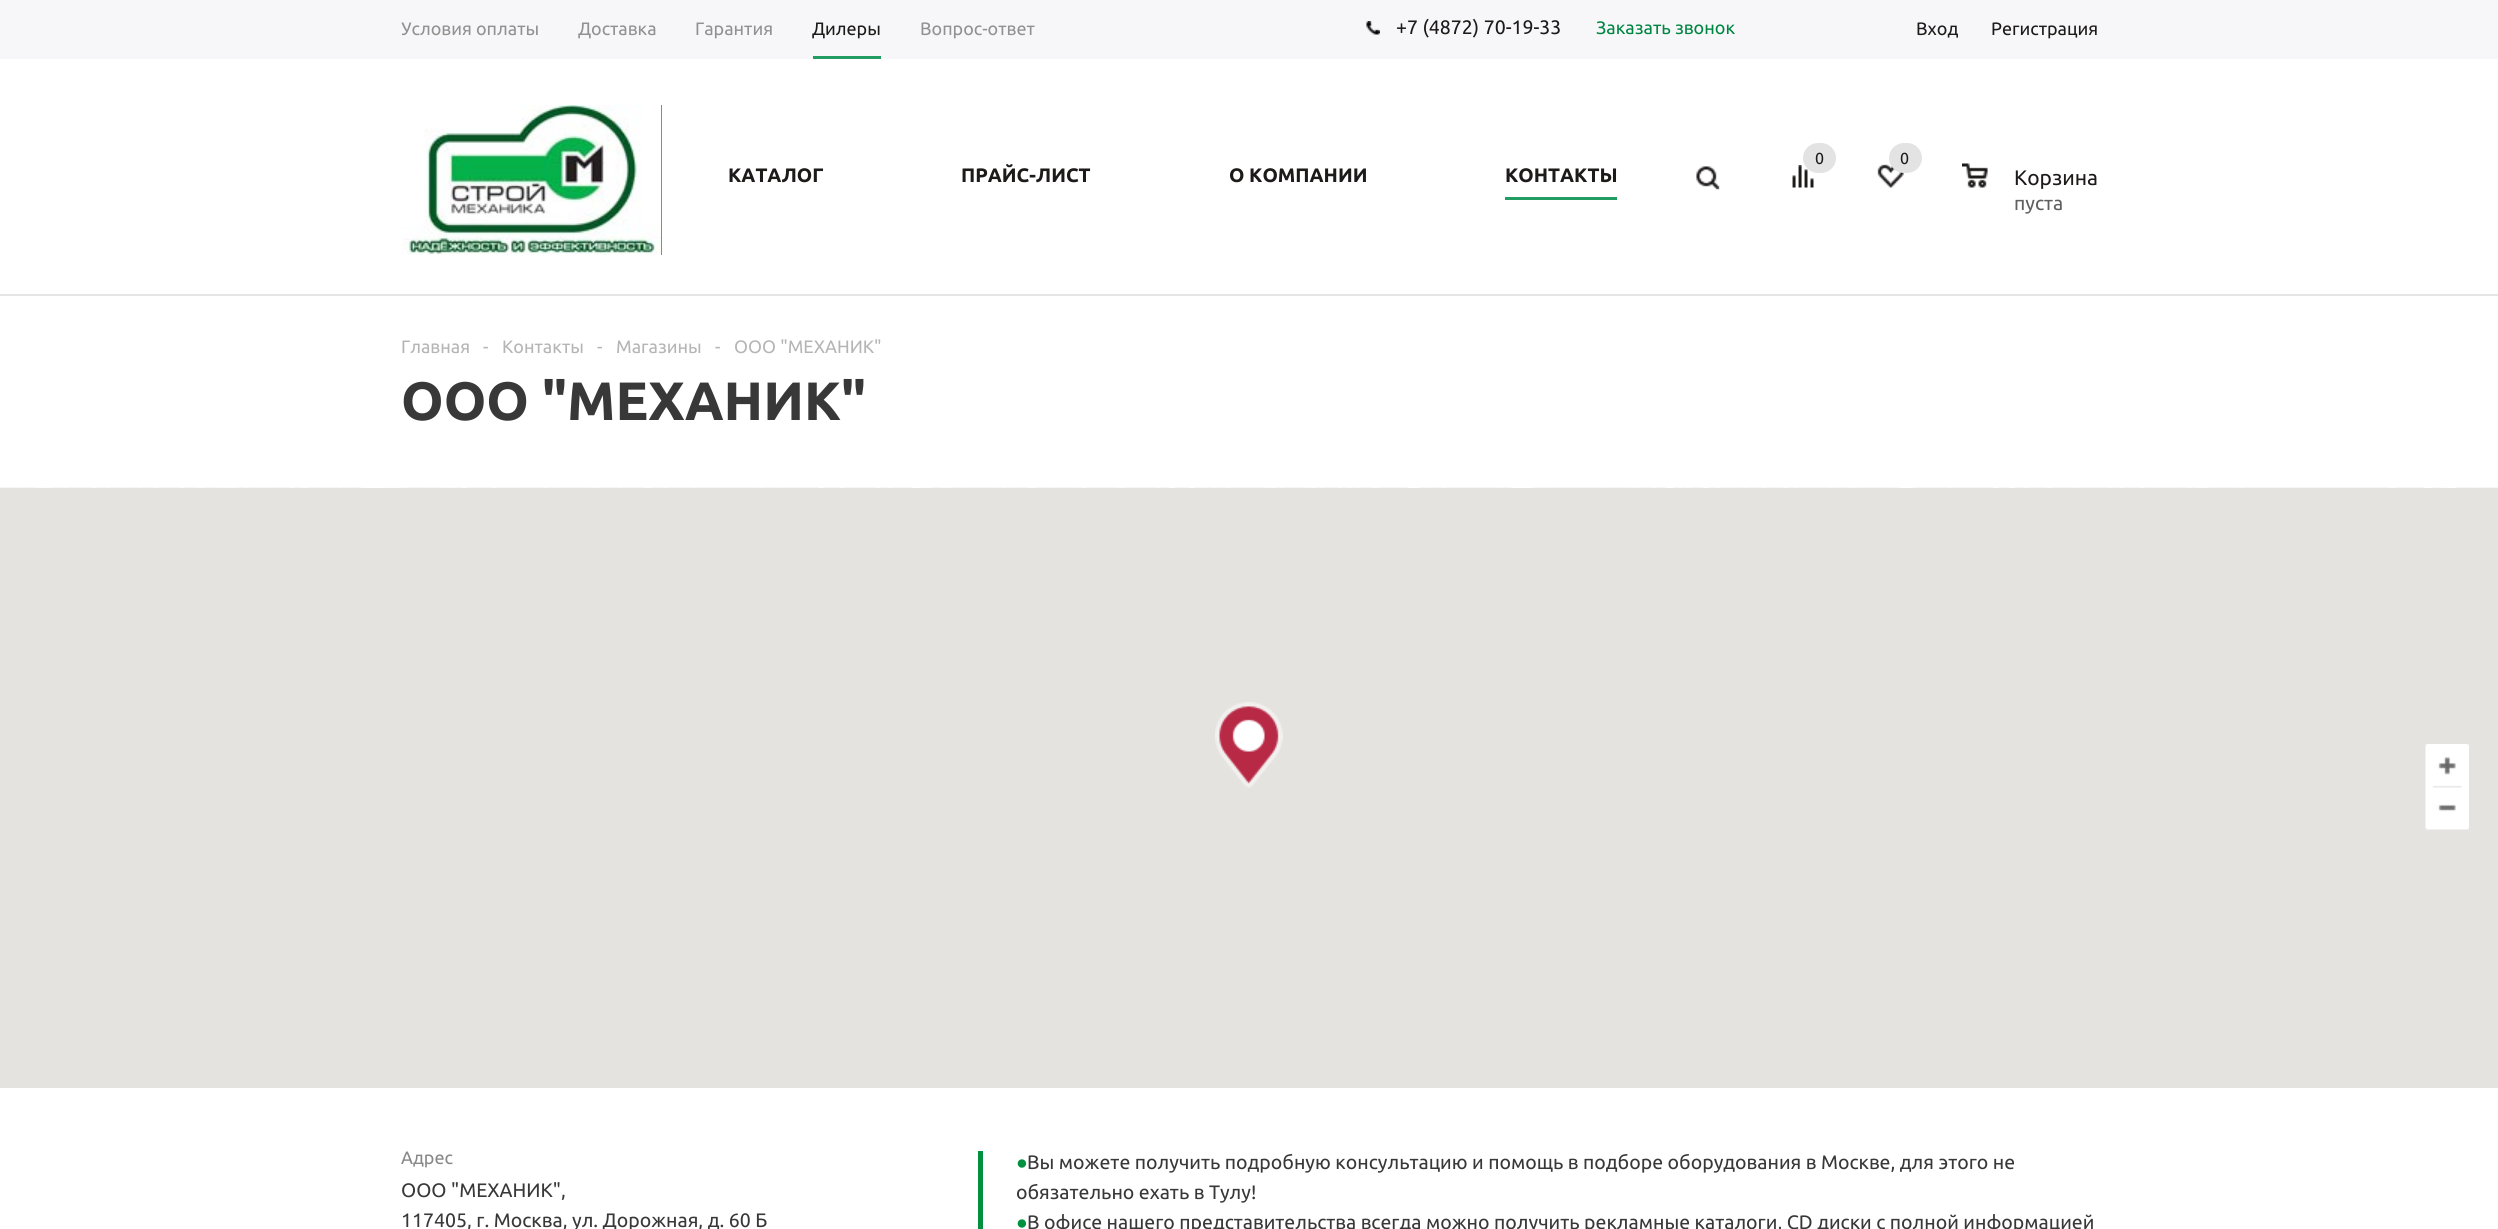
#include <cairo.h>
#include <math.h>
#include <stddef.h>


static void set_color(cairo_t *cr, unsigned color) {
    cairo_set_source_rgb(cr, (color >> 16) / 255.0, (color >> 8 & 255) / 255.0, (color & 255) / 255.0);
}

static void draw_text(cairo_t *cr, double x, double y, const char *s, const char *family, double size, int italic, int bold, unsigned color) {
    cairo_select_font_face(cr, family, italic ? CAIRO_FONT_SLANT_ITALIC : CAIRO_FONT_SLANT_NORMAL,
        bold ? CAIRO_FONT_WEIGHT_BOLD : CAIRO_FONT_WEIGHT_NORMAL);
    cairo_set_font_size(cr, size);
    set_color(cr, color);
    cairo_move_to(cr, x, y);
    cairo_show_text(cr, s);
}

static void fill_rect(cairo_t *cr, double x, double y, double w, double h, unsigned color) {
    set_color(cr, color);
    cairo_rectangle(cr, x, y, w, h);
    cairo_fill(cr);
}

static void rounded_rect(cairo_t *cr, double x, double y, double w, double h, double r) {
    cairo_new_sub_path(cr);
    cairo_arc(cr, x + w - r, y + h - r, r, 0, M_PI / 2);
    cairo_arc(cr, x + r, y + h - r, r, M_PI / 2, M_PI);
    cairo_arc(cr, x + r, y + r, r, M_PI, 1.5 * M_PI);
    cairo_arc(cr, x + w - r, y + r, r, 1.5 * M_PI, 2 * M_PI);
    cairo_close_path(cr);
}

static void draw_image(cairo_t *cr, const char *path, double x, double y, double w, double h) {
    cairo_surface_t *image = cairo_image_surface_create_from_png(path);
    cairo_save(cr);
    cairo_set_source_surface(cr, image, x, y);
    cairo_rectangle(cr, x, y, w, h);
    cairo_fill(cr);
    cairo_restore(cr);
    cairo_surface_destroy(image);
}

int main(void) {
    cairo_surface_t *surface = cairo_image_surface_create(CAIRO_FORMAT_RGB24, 2498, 1229);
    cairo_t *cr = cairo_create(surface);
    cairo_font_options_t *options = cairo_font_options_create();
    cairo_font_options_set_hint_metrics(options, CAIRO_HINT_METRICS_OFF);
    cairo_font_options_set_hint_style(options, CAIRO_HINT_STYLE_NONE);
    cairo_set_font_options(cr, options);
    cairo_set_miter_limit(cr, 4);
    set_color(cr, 0xFFFFFF);
    cairo_paint(cr);
    fill_rect(cr, 0, 0, 2498, 59, 0xF7F7F9);
    draw_text(cr, 401, 35, "Условия оплаты", "Ubuntu", 18, 0, 0, 0x919191);
    draw_text(cr, 578, 35, "Доставка", "Ubuntu", 18, 0, 0, 0x919191);
    draw_text(cr, 695, 35, "Гарантия", "Ubuntu", 18, 0, 0, 0x919191);
    fill_rect(cr, 813, 56, 68, 3, 0x219C63);
    draw_text(cr, 812, 35, "Дилеры", "Ubuntu", 18, 0, 0, 0x1D1A1A);
    draw_text(cr, 920, 35, "Вопрос-ответ", "Ubuntu", 18, 0, 0, 0x919191);
    draw_image(cr, "assets/img1.png", 1366, 21, 14, 14);
    draw_text(cr, 1396, 34, "+7 (4872) 70-19-33", "Ubuntu", 19.5, 0, 0, 0x1D1A1A);
    draw_text(cr, 1596, 34, "Заказать звонок", "Ubuntu", 18, 0, 0, 0x008642);
    draw_text(cr, 1916, 35, "Вход", "Ubuntu", 18, 0, 0, 0x1D1A1A);
    draw_text(cr, 1991, 35, "Регистрация", "Ubuntu", 18, 0, 0, 0x1D1A1A);
    fill_rect(cr, 0, 294, 2498, 2, 0xE5E5E5);
    fill_rect(cr, 661, 105, 1, 150, 0x009A4C);
    draw_image(cr, "assets/img2.png", 401, 105, 261, 150);
    draw_text(cr, 728, 182, "КАТАЛОГ", "Ubuntu", 19.5, 0, 1, 0x1D1A1A);
    draw_text(cr, 961, 182, "ПРАЙС-ЛИСТ", "Ubuntu", 19.5, 0, 1, 0x1D1A1A);
    draw_text(cr, 1229, 182, "О КОМПАНИИ", "Ubuntu", 19.5, 0, 1, 0x1D1A1A);
    fill_rect(cr, 1505, 197, 112, 3, 0x219C63);
    draw_text(cr, 1505, 182, "КОНТАКТЫ", "Ubuntu", 19.5, 0, 1, 0x1D1A1A);
    draw_image(cr, "assets/img3.png", 1696, 166, 24, 24);
    draw_image(cr, "assets/img4.png", 1792, 165, 22, 23);
    set_color(cr, 0xE3E3E3);
    rounded_rect(cr, 1803, 143, 33, 30, 15);
    cairo_fill(cr);
    draw_text(cr, 1815, 164, "0", "Ubuntu", 16, 0, 0, 0x1D1A1A);
    draw_image(cr, "assets/img5.png", 1877, 164, 27, 24);
    set_color(cr, 0xE3E3E3);
    rounded_rect(cr, 1889, 143, 33, 30, 15);
    cairo_fill(cr);
    draw_text(cr, 1900, 164, "0", "Ubuntu", 16, 0, 0, 0x1D1A1A);
    draw_image(cr, "assets/img6.png", 1962, 163, 26, 25);
    draw_text(cr, 2014, 185, "Корзина", "Ubuntu", 21, 0, 0, 0x1D1A1A);
    draw_text(cr, 2014, 210, "пуста", "Ubuntu", 19.5, 0, 0, 0x5F5F5F);
    draw_text(cr, 401, 353, "Главная", "Ubuntu", 18, 0, 0, 0xB6B5B5);
    draw_text(cr, 483, 353, "-", "Ubuntu", 18, 0, 0, 0xB6B5B5);
    draw_text(cr, 502, 353, "Контакты", "Ubuntu", 18, 0, 0, 0xB6B5B5);
    draw_text(cr, 597, 353, "-", "Ubuntu", 18, 0, 0, 0xB6B5B5);
    draw_text(cr, 616, 353, "Магазины", "Ubuntu", 18, 0, 0, 0xB6B5B5);
    draw_text(cr, 715, 353, "-", "Ubuntu", 18, 0, 0, 0xB6B5B5);
    draw_text(cr, 734, 353, "ООО \"МЕХАНИК\"", "Ubuntu", 18, 0, 0, 0xB6B5B5);
    draw_text(cr, 401, 420, "ООО \"МЕХАНИК\"", "Ubuntu", 54, 0, 1, 0x383838);
    draw_image(cr, "assets/img7.png", 0, 487, 2498, 1);
    fill_rect(cr, 0, 488, 2498, 600, 0xE5E3DF);
    draw_image(cr, "assets/img8.png", 1215, 702, 68, 86);
    draw_image(cr, "assets/img9.png", 2425, 744, 44, 86);
    draw_text(cr, 401, 1164, "Адрес", "Ubuntu", 18, 0, 0, 0x888888);
    draw_text(cr, 401, 1197, "ООО \"МЕХАНИК\",", "Ubuntu", 19.5, 0, 0, 0x383838);
    draw_text(cr, 401, 1227, "117405, г. Москва, ул. Дорожная, д. 60 Б", "Ubuntu", 19.5, 0, 0, 0x383838);
    fill_rect(cr, 978, 1151, 5, 78, 0x00903E);
    draw_text(cr, 1016, 1169, "●", "Liberation Sans", 19.5, 0, 0, 0x00903E);
    draw_text(cr, 1027, 1169, "Вы можете получить подробную консультацию и помощь в подборе оборудования в Москве, для этого не", "Ubuntu", 19.5, 0, 0, 0x383838);
    draw_text(cr, 1016, 1199, "обязательно ехать в Тулу!", "Ubuntu", 19.5, 0, 0, 0x383838);
    draw_text(cr, 1016, 1229, "●", "Liberation Sans", 19.5, 0, 0, 0x00903E);
    draw_text(cr, 1027, 1229, "В офисе нашего представительства всегда можно получить рекламные каталоги, CD диски с полной информацией", "Ubuntu", 19.5, 0, 0, 0x383838);
    cairo_surface_write_to_png(surface, "output.png");
    cairo_font_options_destroy(options);
    cairo_destroy(cr);
    cairo_surface_destroy(surface);
    return 0;
}
